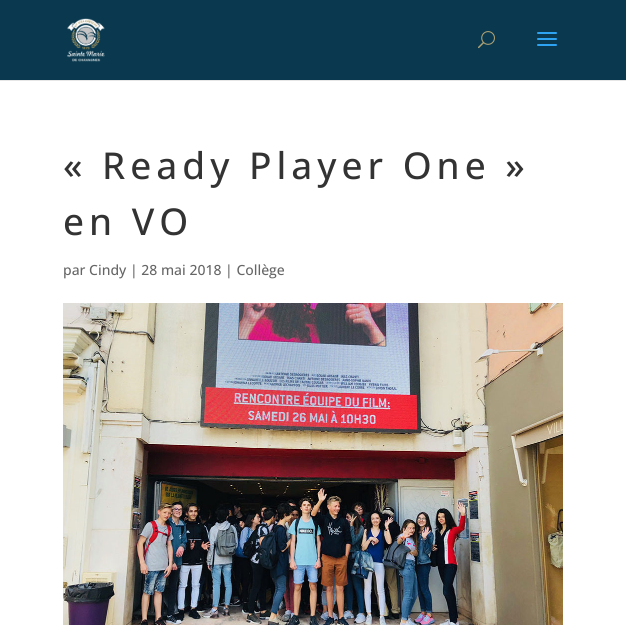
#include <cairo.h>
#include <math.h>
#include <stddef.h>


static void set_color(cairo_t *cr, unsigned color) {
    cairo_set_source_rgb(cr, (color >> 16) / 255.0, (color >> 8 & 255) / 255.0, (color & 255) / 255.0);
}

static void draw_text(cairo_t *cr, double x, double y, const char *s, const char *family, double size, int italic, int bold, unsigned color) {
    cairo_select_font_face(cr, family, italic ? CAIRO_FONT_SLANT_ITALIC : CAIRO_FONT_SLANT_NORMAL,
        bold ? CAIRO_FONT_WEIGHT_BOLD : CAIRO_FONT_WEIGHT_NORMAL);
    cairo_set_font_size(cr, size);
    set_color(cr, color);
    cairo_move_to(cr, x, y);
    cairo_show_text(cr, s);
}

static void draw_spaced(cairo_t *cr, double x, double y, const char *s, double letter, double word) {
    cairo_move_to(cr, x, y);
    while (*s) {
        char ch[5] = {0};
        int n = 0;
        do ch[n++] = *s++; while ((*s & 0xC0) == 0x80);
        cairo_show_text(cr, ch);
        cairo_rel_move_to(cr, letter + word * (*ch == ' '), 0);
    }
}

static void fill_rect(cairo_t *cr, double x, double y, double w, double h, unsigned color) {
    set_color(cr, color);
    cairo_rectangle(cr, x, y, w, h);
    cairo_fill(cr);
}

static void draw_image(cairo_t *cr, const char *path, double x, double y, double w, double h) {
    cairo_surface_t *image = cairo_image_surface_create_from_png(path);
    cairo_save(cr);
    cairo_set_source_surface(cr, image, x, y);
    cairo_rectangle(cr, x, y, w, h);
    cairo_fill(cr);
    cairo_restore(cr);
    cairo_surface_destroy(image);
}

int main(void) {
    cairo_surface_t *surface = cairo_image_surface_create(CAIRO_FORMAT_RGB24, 626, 625);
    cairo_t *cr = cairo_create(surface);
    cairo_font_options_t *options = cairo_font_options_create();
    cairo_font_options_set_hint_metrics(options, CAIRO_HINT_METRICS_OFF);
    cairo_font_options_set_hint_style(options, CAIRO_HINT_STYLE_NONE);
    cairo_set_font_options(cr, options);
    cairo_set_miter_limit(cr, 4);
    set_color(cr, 0xFFFFFF);
    cairo_paint(cr);
    fill_rect(cr, 0, 80, 626, 1, 0xE6E6E6);
    fill_rect(cr, 0, 0, 626, 80, 0x0A394F);
    draw_image(cr, "assets/img1.png", 67, 18, 38, 44);
    draw_image(cr, "assets/img2.png", 478, 31, 17, 18);
    draw_image(cr, "assets/img3.png", 537, 32, 20, 14);
    cairo_select_font_face(cr, "Open Sans Medium", CAIRO_FONT_SLANT_NORMAL, CAIRO_FONT_WEIGHT_NORMAL);
    cairo_set_font_size(cr, 37);
    set_color(cr, 0x333333);
    draw_spaced(cr, 63, 179, "« Ready Player One »", 5, 0);
    draw_spaced(cr, 63, 235, "en VO", 5, 0);
    draw_text(cr, 63, 275, "par Cindy | 28 mai 2018 | Collège", "Open Sans Medium", 14, 0, 0, 0x666666);
    draw_image(cr, "assets/img4.png", 63, 303, 500, 322);
    cairo_surface_write_to_png(surface, "output.png");
    cairo_font_options_destroy(options);
    cairo_destroy(cr);
    cairo_surface_destroy(surface);
    return 0;
}
